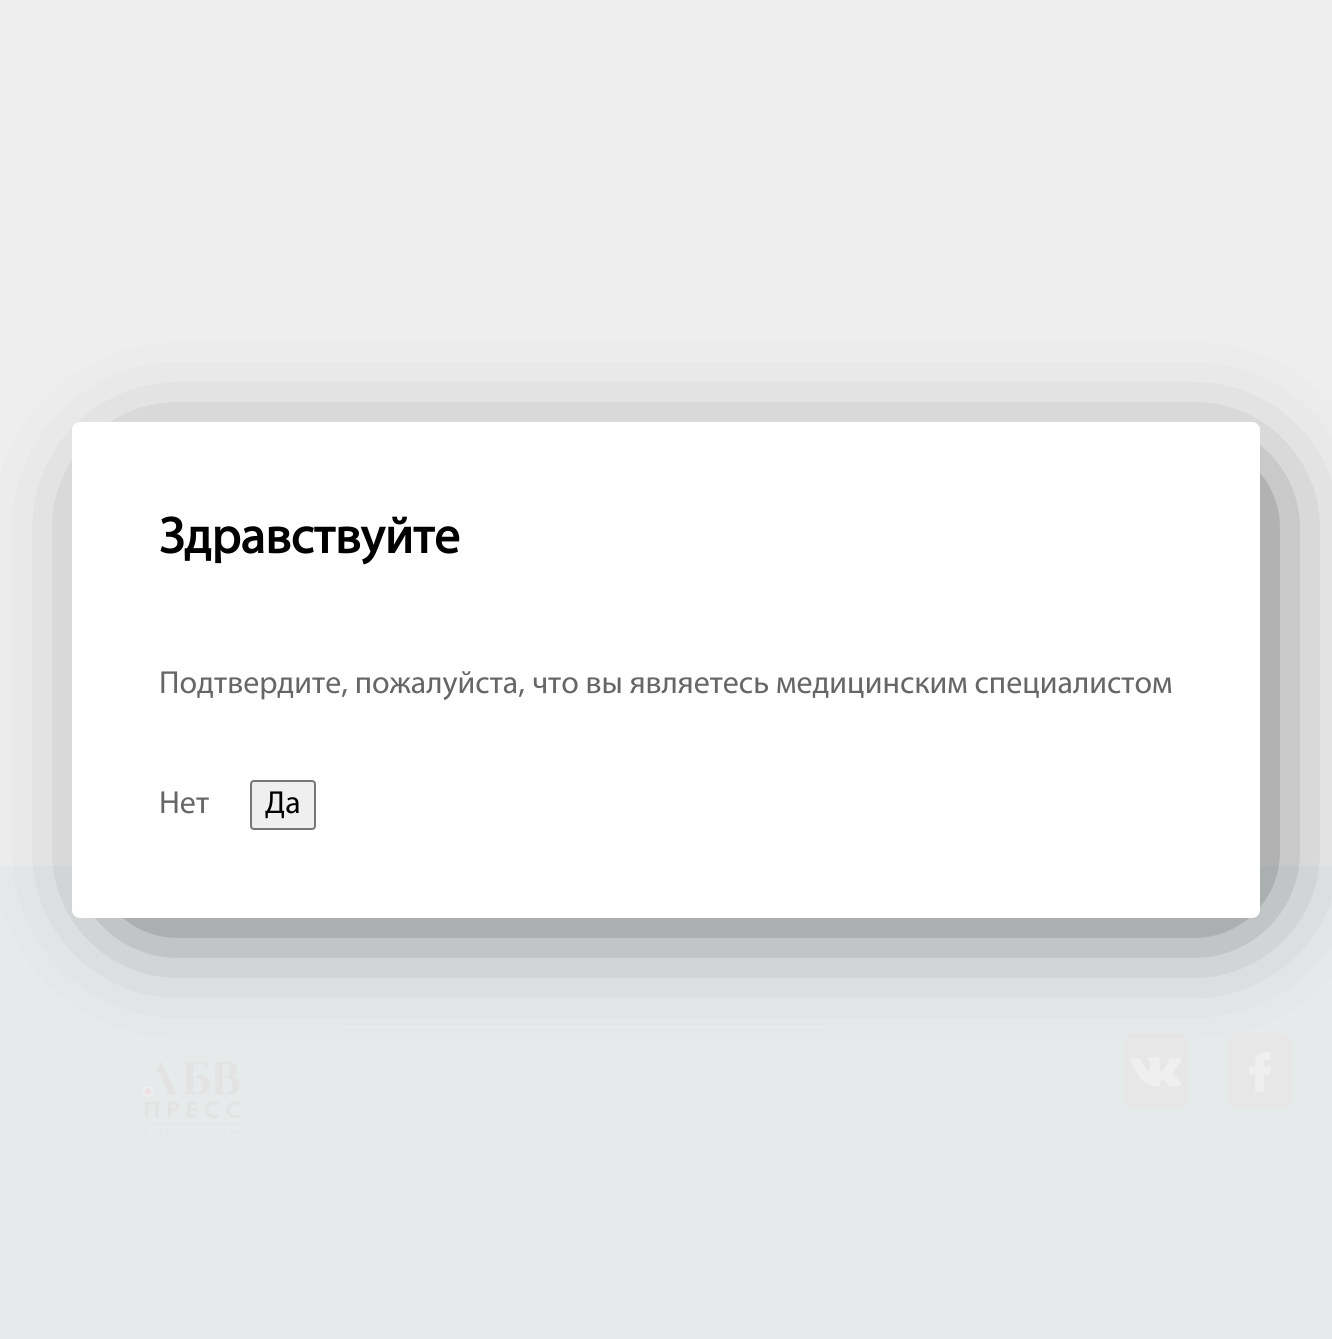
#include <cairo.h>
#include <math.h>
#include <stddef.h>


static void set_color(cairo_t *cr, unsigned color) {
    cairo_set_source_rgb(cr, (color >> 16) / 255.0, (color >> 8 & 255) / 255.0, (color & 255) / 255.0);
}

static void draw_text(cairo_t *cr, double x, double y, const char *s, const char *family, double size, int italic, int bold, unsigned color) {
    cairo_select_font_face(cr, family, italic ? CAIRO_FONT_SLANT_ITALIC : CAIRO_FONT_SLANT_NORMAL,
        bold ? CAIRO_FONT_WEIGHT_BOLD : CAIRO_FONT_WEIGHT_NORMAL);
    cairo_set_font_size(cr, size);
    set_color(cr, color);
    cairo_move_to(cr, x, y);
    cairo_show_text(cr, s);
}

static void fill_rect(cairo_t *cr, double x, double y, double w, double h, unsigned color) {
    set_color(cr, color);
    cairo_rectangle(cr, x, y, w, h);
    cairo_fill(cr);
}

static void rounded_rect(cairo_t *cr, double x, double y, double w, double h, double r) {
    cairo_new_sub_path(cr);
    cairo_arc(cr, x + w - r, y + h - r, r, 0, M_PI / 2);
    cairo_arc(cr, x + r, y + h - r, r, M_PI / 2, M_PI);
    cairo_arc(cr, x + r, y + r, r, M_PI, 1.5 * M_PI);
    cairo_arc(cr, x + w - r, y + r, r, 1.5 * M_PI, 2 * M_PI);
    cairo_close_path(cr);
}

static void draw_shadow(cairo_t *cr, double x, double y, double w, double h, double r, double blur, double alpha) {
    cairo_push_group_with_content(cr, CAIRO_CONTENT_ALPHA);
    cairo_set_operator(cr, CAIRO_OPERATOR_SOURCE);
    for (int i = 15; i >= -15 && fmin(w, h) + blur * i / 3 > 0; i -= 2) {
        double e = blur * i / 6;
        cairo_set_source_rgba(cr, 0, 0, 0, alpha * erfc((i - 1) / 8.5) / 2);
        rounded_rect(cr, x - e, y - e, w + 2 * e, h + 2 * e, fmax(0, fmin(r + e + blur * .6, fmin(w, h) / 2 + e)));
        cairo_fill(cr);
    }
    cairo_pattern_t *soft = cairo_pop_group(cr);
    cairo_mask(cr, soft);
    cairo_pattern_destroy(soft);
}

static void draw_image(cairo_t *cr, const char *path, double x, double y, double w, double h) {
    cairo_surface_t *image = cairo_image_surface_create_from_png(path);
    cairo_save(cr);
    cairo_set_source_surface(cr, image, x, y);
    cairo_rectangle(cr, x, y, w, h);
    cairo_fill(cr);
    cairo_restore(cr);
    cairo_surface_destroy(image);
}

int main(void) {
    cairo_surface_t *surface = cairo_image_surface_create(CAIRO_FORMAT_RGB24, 1332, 1339);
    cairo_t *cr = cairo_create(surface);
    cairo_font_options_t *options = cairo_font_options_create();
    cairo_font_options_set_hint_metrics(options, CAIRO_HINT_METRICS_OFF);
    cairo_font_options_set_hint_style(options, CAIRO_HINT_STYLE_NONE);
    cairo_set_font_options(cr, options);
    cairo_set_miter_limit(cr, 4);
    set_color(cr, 0xEEEEEE);
    cairo_paint(cr);
    fill_rect(cr, 0, 866, 1332, 473, 0xE6EAEA);
    fill_rect(cr, 340, 1026, 486, 2, 0xEBEDED);
    draw_image(cr, "assets/img1.png", 143, 1060, 97, 76);
    set_color(cr, 0xE7E7E7);
    rounded_rect(cr, 1124, 1034, 64, 74, 10);
    cairo_fill(cr);
    draw_image(cr, "assets/img2.png", 1130, 1057, 52, 30);
    rounded_rect(cr, 1228, 1034, 64, 74, 10);
    cairo_fill(cr);
    draw_image(cr, "assets/img3.png", 1249, 1052, 22, 40);
    set_color(cr, 0x000000);
    draw_shadow(cr, 142, 492, 1088, 396, 0, 60, 1);
    set_color(cr, 0xFFFFFF);
    rounded_rect(cr, 72, 422, 1188, 496, 8);
    cairo_fill(cr);
    draw_text(cr, 159, 553, "Здравствуйте", "Myriad", 51.25, 0, 1, 0x000000);
    draw_text(cr, 159, 693, "Подтвердите, пожалуйста, что вы являетесь медицинским специалистом", "Myriad", 32, 0, 0, 0x666666);
    draw_text(cr, 159, 813, "Нет", "Myriad", 32, 0, 0, 0x666666);
    set_color(cr, 0xEFEFEF);
    rounded_rect(cr, 251, 781, 64, 48, 3);
    cairo_fill_preserve(cr);
    set_color(cr, 0x767676);
    cairo_stroke(cr);
    draw_text(cr, 265, 813, "Да", "Myriad", 32, 0, 0, 0x000000);
    cairo_surface_write_to_png(surface, "output.png");
    cairo_font_options_destroy(options);
    cairo_destroy(cr);
    cairo_surface_destroy(surface);
    return 0;
}
